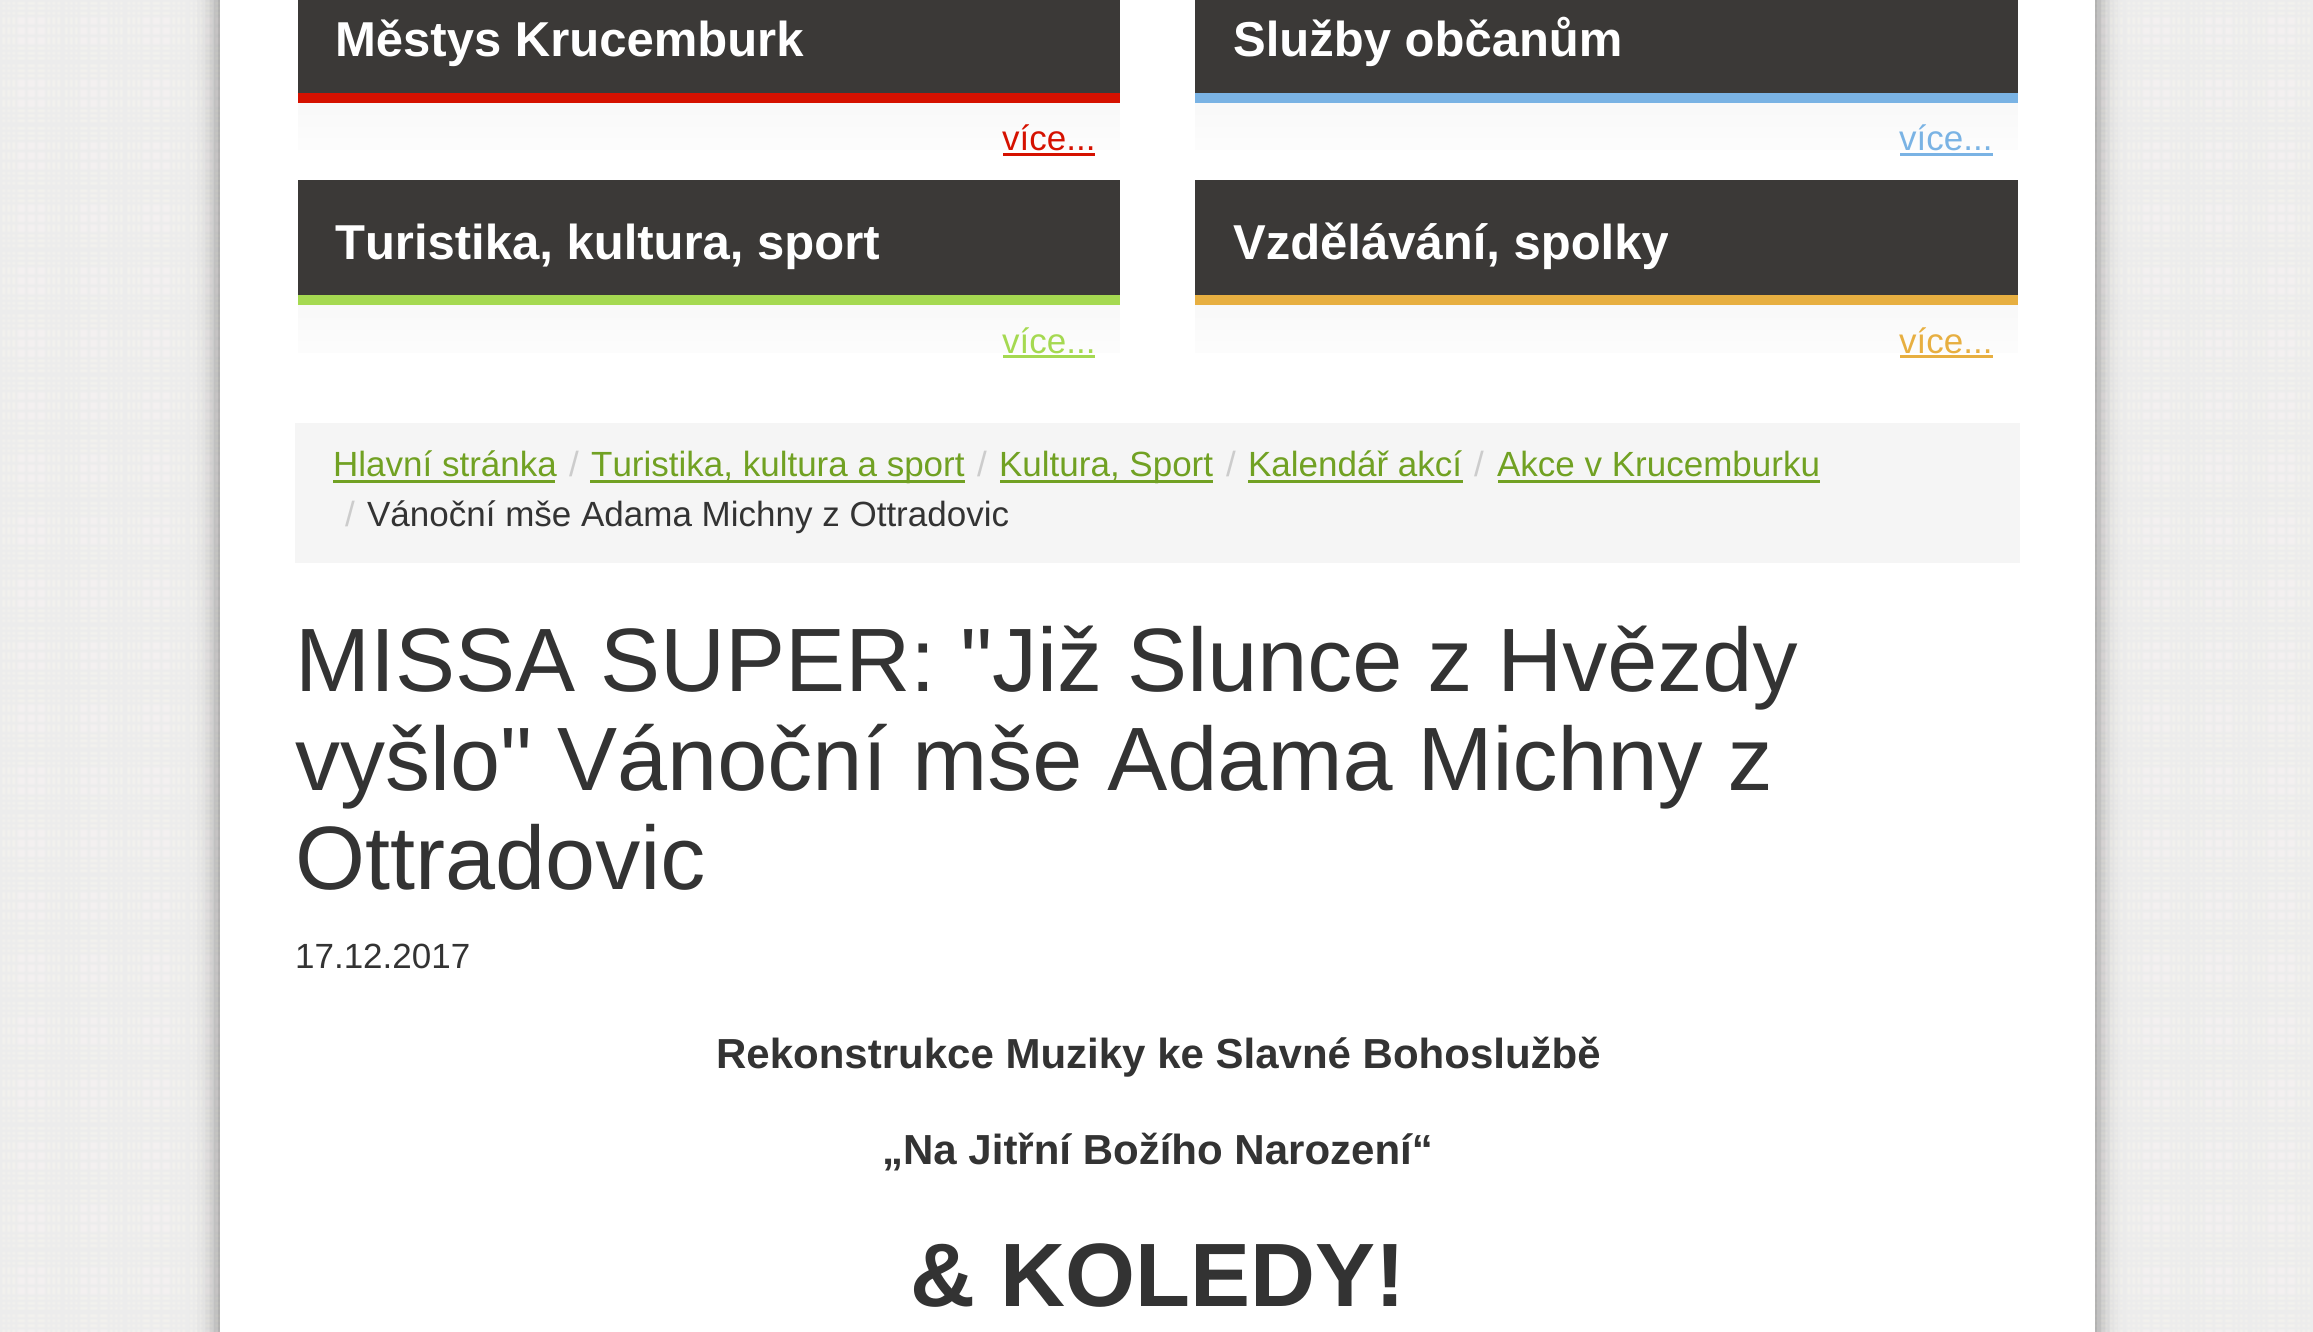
#include <cairo.h>
#include <math.h>
#include <stddef.h>


static void set_color(cairo_t *cr, unsigned color) {
    cairo_set_source_rgb(cr, (color >> 16) / 255.0, (color >> 8 & 255) / 255.0, (color & 255) / 255.0);
}

static void draw_text(cairo_t *cr, double x, double y, const char *s, const char *family, double size, int italic, int bold, unsigned color) {
    cairo_select_font_face(cr, family, italic ? CAIRO_FONT_SLANT_ITALIC : CAIRO_FONT_SLANT_NORMAL,
        bold ? CAIRO_FONT_WEIGHT_BOLD : CAIRO_FONT_WEIGHT_NORMAL);
    cairo_set_font_size(cr, size);
    set_color(cr, color);
    cairo_move_to(cr, x, y);
    cairo_show_text(cr, s);
}

static void fill_rect(cairo_t *cr, double x, double y, double w, double h, unsigned color) {
    set_color(cr, color);
    cairo_rectangle(cr, x, y, w, h);
    cairo_fill(cr);
}

static void rounded_rect(cairo_t *cr, double x, double y, double w, double h, double r) {
    cairo_new_sub_path(cr);
    cairo_arc(cr, x + w - r, y + h - r, r, 0, M_PI / 2);
    cairo_arc(cr, x + r, y + h - r, r, M_PI / 2, M_PI);
    cairo_arc(cr, x + r, y + r, r, M_PI, 1.5 * M_PI);
    cairo_arc(cr, x + w - r, y + r, r, 1.5 * M_PI, 2 * M_PI);
    cairo_close_path(cr);
}

static void draw_shadow(cairo_t *cr, double x, double y, double w, double h, double r, double blur, double alpha) {
    cairo_push_group_with_content(cr, CAIRO_CONTENT_ALPHA);
    cairo_set_operator(cr, CAIRO_OPERATOR_SOURCE);
    for (int i = 15; i >= -15 && fmin(w, h) + blur * i / 3 > 0; i -= 2) {
        double e = blur * i / 6;
        cairo_set_source_rgba(cr, 0, 0, 0, alpha * erfc((i - 1) / 8.5) / 2);
        rounded_rect(cr, x - e, y - e, w + 2 * e, h + 2 * e, fmax(0, fmin(r + e + blur * .6, fmin(w, h) / 2 + e)));
        cairo_fill(cr);
    }
    cairo_pattern_t *soft = cairo_pop_group(cr);
    cairo_mask(cr, soft);
    cairo_pattern_destroy(soft);
}

static void draw_image(cairo_t *cr, const char *path, double x, double y, double w, double h) {
    cairo_surface_t *image = cairo_image_surface_create_from_png(path);
    cairo_save(cr);
    cairo_set_source_surface(cr, image, x, y);
    cairo_rectangle(cr, x, y, w, h);
    cairo_fill(cr);
    cairo_restore(cr);
    cairo_surface_destroy(image);
}

int main(void) {
    cairo_surface_t *surface = cairo_image_surface_create(CAIRO_FORMAT_RGB24, 2313, 1332);
    cairo_t *cr = cairo_create(surface);
    cairo_font_options_t *options = cairo_font_options_create();
    cairo_font_options_set_hint_metrics(options, CAIRO_HINT_METRICS_OFF);
    cairo_font_options_set_hint_style(options, CAIRO_HINT_STYLE_NONE);
    cairo_set_font_options(cr, options);
    cairo_set_miter_limit(cr, 4);
    cairo_pattern_t *gradient;
    set_color(cr, 0xFFFFFF);
    cairo_paint(cr);
    draw_image(cr, "assets/img1.png", 0, 0, 2313, 1332);
    set_color(cr, 0x000000);
    draw_shadow(cr, 220, -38, 1875, 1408, 0, 12.5, 0.5);
    fill_rect(cr, 220, 0, 1875, 1332, 0xFFFFFF);
    gradient = cairo_pattern_create_linear(709, -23, 709, 180);
    cairo_pattern_add_color_stop_rgba(gradient, 0, 0.933, 0.933, 0.933, 1);
    cairo_pattern_add_color_stop_rgba(gradient, 1, 1, 1, 1, 1);
    cairo_set_source(cr, gradient);
    cairo_pattern_destroy(gradient);
    cairo_rectangle(cr, 298, 103, 822, 47);
    cairo_fill(cr);
    fill_rect(cr, 298, 0, 822, 93, 0x3B3937);
    fill_rect(cr, 298, 93, 822, 10, 0xD51100);
    draw_text(cr, 335, 56, "Městys Krucemburk", "Liberation Sans", 49, 0, 1, 0xFFFFFF);
    draw_text(cr, 1002, 150, "více...", "Liberation Sans", 35, 0, 0, 0xD51100);
    fill_rect(cr, 1003, 153, 92, 3, 0xD51100);
    gradient = cairo_pattern_create_linear(1606, -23, 1606, 180);
    cairo_pattern_add_color_stop_rgba(gradient, 0, 0.933, 0.933, 0.933, 1);
    cairo_pattern_add_color_stop_rgba(gradient, 1, 1, 1, 1, 1);
    cairo_set_source(cr, gradient);
    cairo_pattern_destroy(gradient);
    cairo_rectangle(cr, 1195, 103, 823, 47);
    cairo_fill(cr);
    fill_rect(cr, 1195, 0, 823, 93, 0x3B3937);
    fill_rect(cr, 1195, 93, 823, 10, 0x7AB3E4);
    draw_text(cr, 1233, 56, "Služby občanům", "Liberation Sans", 49, 0, 1, 0xFFFFFF);
    draw_text(cr, 1899, 150, "více...", "Liberation Sans", 35, 0, 0, 0x7AB3E4);
    fill_rect(cr, 1900, 153, 93, 3, 0x7AB3E4);
    gradient = cairo_pattern_create_linear(709, 180, 709, 383);
    cairo_pattern_add_color_stop_rgba(gradient, 0, 0.933, 0.933, 0.933, 1);
    cairo_pattern_add_color_stop_rgba(gradient, 1, 1, 1, 1, 1);
    cairo_set_source(cr, gradient);
    cairo_pattern_destroy(gradient);
    cairo_rectangle(cr, 298, 305, 822, 48);
    cairo_fill(cr);
    fill_rect(cr, 298, 180, 822, 115, 0x3B3937);
    fill_rect(cr, 298, 295, 822, 10, 0xA5D951);
    draw_text(cr, 335, 259, "Turistika, kultura, sport", "Liberation Sans", 49, 0, 1, 0xFFFFFF);
    draw_text(cr, 1002, 353, "více...", "Liberation Sans", 35, 0, 0, 0xA5D951);
    fill_rect(cr, 1003, 355, 92, 3, 0xA5D951);
    gradient = cairo_pattern_create_linear(1606, 180, 1606, 383);
    cairo_pattern_add_color_stop_rgba(gradient, 0, 0.933, 0.933, 0.933, 1);
    cairo_pattern_add_color_stop_rgba(gradient, 1, 1, 1, 1, 1);
    cairo_set_source(cr, gradient);
    cairo_pattern_destroy(gradient);
    cairo_rectangle(cr, 1195, 305, 823, 48);
    cairo_fill(cr);
    fill_rect(cr, 1195, 180, 823, 115, 0x3B3937);
    fill_rect(cr, 1195, 295, 823, 10, 0xE7AF41);
    draw_text(cr, 1233, 259, "Vzdělávání, spolky", "Liberation Sans", 49, 0, 1, 0xFFFFFF);
    draw_text(cr, 1899, 353, "více...", "Liberation Sans", 35, 0, 0, 0xE7AF41);
    fill_rect(cr, 1900, 355, 93, 3, 0xE7AF41);
    fill_rect(cr, 295, 423, 1725, 140, 0xF5F5F5);
    draw_text(cr, 333, 476, "Hlavní stránka", "Liberation Sans", 35, 0, 0, 0x71A123);
    fill_rect(cr, 333, 480, 222, 3, 0x71A123);
    draw_text(cr, 569, 476, "/", "Liberation Sans", 35, 0, 0, 0xCCCCCC);
    fill_rect(cr, 590, 480, 375, 3, 0x71A123);
    draw_text(cr, 591, 476, "Turistika, kultura a sport", "Liberation Sans", 35, 0, 0, 0x71A123);
    draw_text(cr, 977, 476, "/", "Liberation Sans", 35, 0, 0, 0xCCCCCC);
    fill_rect(cr, 1000, 480, 213, 3, 0x71A123);
    draw_text(cr, 999, 476, "Kultura, Sport", "Liberation Sans", 35, 0, 0, 0x71A123);
    draw_text(cr, 1226, 476, "/", "Liberation Sans", 35, 0, 0, 0xCCCCCC);
    draw_text(cr, 1248, 476, "Kalendář akcí", "Liberation Sans", 35, 0, 0, 0x71A123);
    fill_rect(cr, 1248, 480, 215, 3, 0x71A123);
    draw_text(cr, 1474, 476, "/", "Liberation Sans", 35, 0, 0, 0xCCCCCC);
    draw_text(cr, 1497, 476, "Akce v Krucemburku", "Liberation Sans", 35, 0, 0, 0x71A123);
    fill_rect(cr, 1498, 480, 322, 3, 0x71A123);
    draw_text(cr, 345, 526, "/", "Liberation Sans", 35, 0, 0, 0xCCCCCC);
    draw_text(cr, 367, 526, "Vánoční mše Adama Michny z Ottradovic", "Liberation Sans", 35, 0, 0, 0x333333);
    draw_text(cr, 295, 691, "MISSA SUPER: \"Již Slunce z Hvězdy", "Liberation Sans", 90, 0, 0, 0x333333);
    draw_text(cr, 295, 790, "vyšlo\" Vánoční mše Adama Michny z", "Liberation Sans", 90, 0, 0, 0x333333);
    draw_text(cr, 295, 889, "Ottradovic", "Liberation Sans", 90, 0, 0, 0x333333);
    draw_text(cr, 295, 968, "17.12.2017", "Liberation Sans", 35, 0, 0, 0x333333);
    draw_text(cr, 716, 1068, "Rekonstrukce Muziky ke Slavné Bohoslužbě", "Liberation Sans", 42, 0, 1, 0x333333);
    draw_text(cr, 882, 1164, "„Na Jitřní Božího Narození“", "Liberation Sans", 42, 0, 1, 0x333333);
    draw_text(cr, 910, 1306, "& KOLEDY!", "Liberation Sans", 90, 0, 1, 0x333333);
    cairo_surface_write_to_png(surface, "output.png");
    cairo_font_options_destroy(options);
    cairo_destroy(cr);
    cairo_surface_destroy(surface);
    return 0;
}
